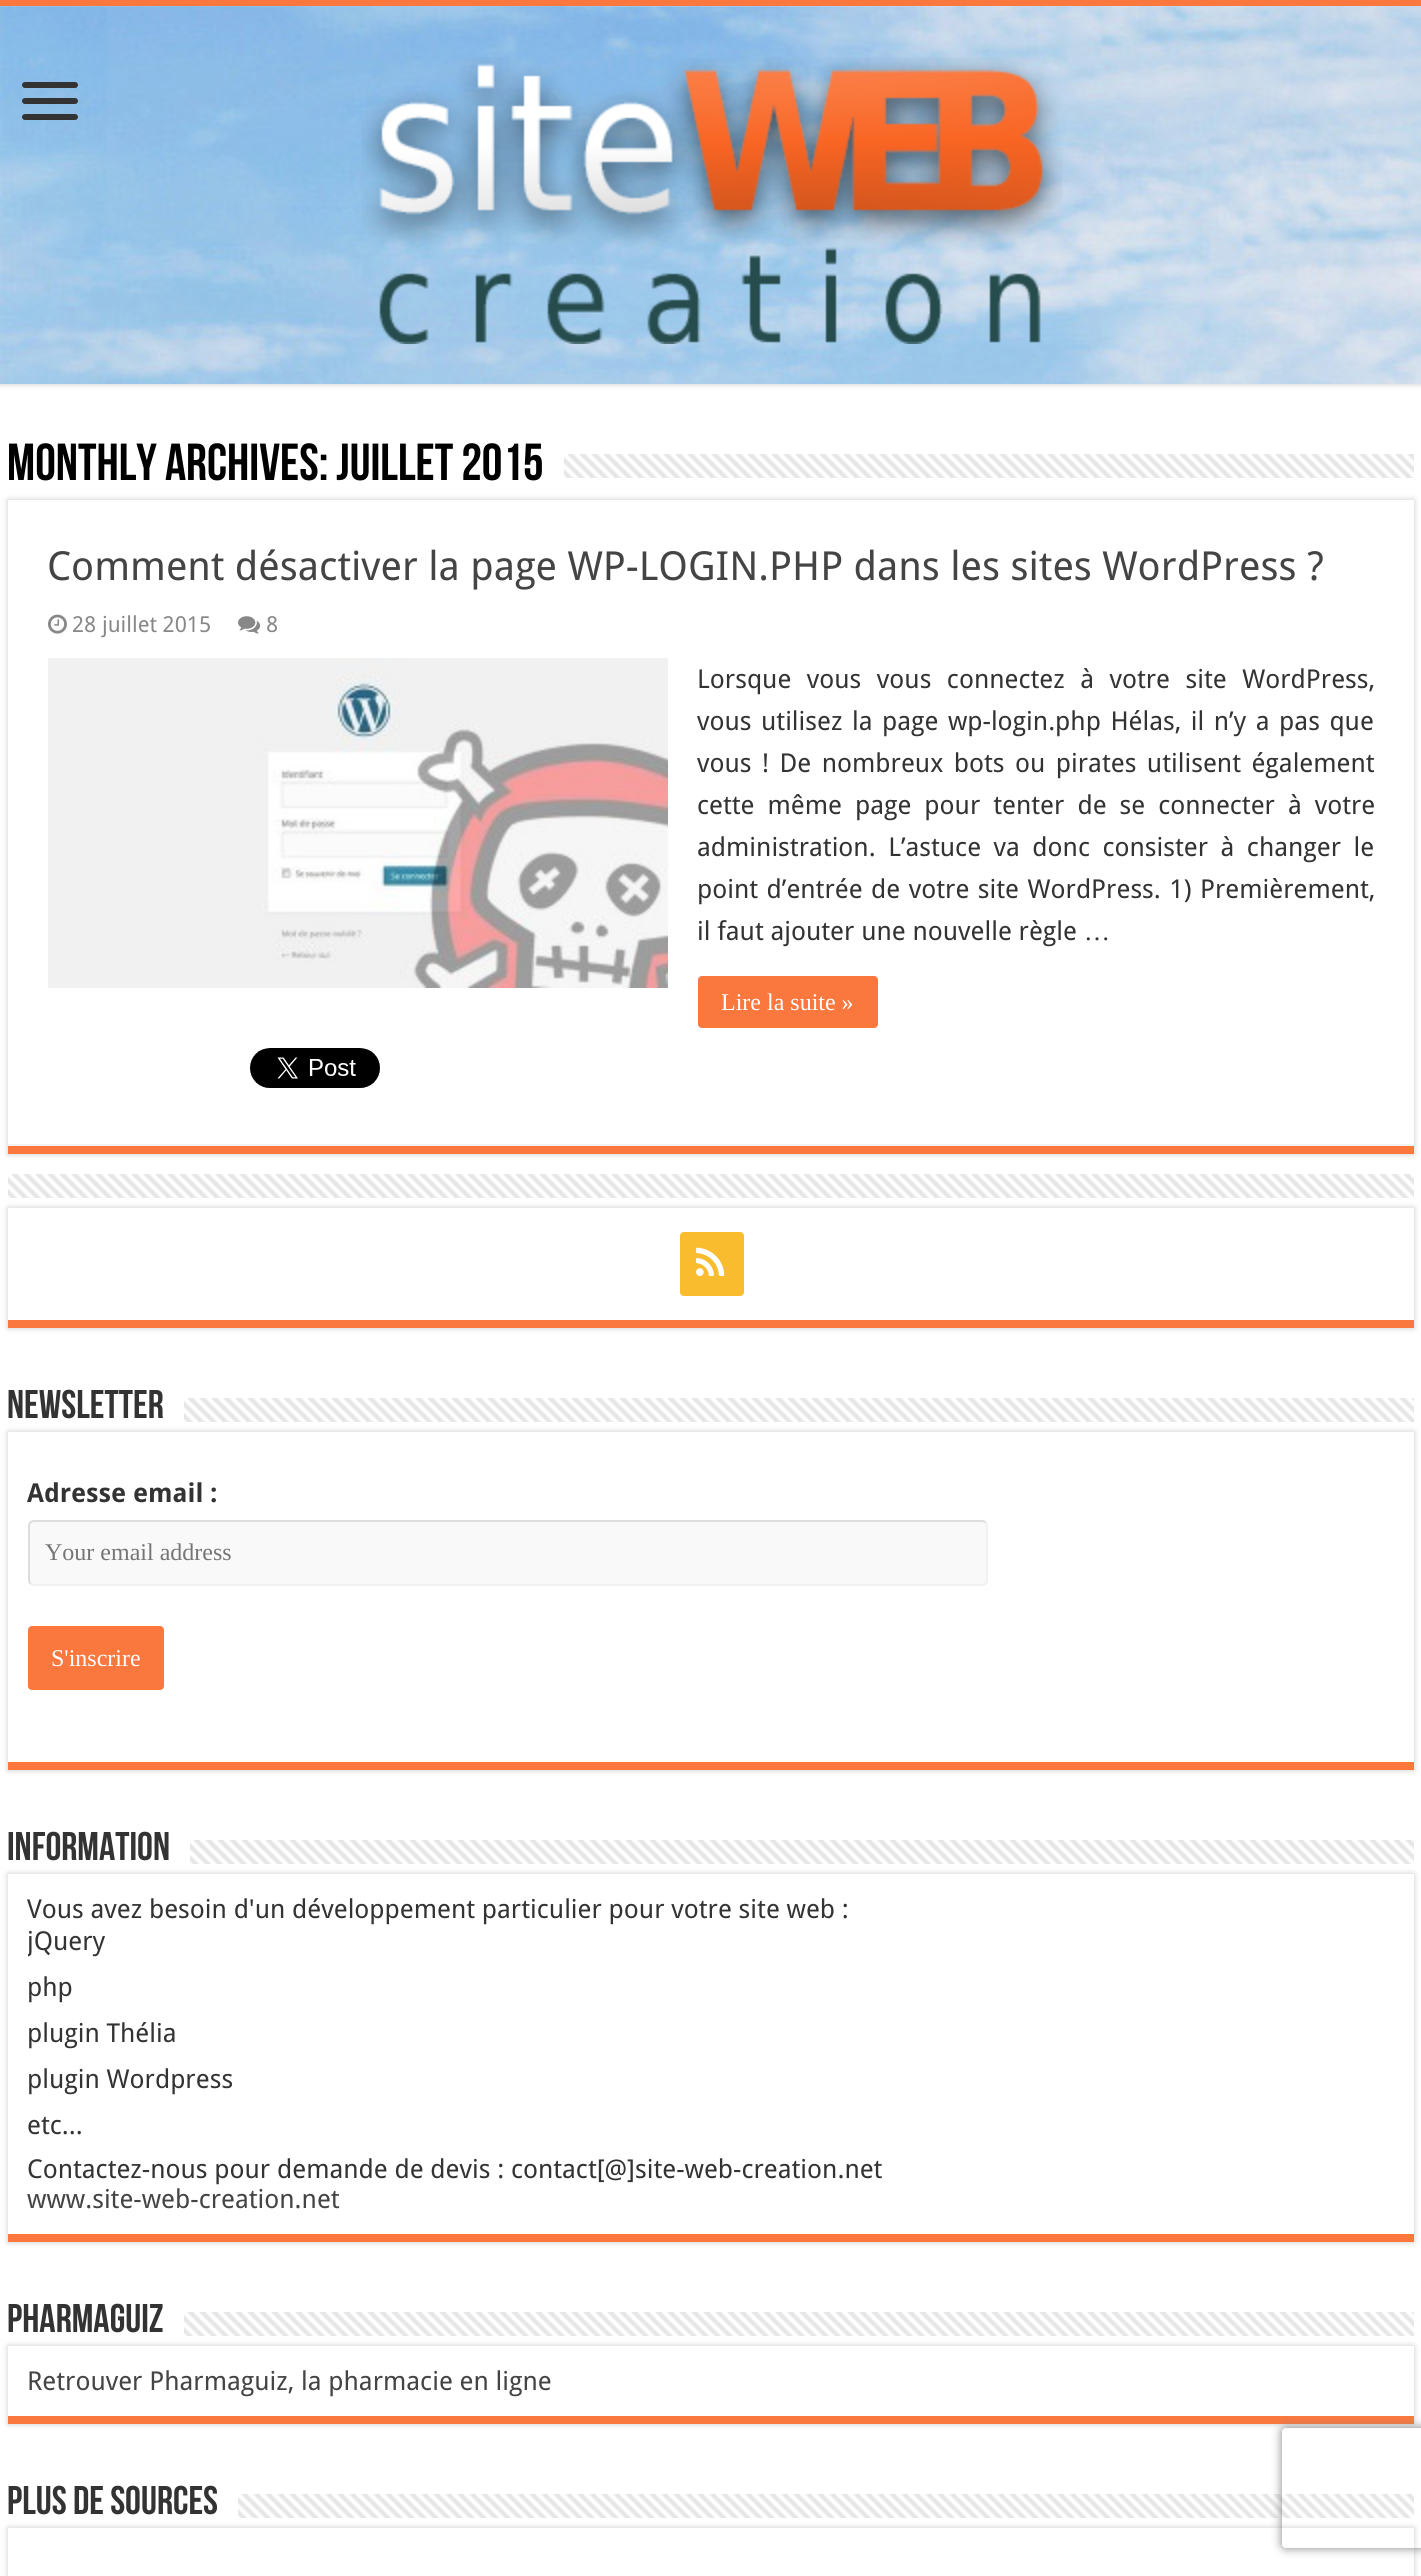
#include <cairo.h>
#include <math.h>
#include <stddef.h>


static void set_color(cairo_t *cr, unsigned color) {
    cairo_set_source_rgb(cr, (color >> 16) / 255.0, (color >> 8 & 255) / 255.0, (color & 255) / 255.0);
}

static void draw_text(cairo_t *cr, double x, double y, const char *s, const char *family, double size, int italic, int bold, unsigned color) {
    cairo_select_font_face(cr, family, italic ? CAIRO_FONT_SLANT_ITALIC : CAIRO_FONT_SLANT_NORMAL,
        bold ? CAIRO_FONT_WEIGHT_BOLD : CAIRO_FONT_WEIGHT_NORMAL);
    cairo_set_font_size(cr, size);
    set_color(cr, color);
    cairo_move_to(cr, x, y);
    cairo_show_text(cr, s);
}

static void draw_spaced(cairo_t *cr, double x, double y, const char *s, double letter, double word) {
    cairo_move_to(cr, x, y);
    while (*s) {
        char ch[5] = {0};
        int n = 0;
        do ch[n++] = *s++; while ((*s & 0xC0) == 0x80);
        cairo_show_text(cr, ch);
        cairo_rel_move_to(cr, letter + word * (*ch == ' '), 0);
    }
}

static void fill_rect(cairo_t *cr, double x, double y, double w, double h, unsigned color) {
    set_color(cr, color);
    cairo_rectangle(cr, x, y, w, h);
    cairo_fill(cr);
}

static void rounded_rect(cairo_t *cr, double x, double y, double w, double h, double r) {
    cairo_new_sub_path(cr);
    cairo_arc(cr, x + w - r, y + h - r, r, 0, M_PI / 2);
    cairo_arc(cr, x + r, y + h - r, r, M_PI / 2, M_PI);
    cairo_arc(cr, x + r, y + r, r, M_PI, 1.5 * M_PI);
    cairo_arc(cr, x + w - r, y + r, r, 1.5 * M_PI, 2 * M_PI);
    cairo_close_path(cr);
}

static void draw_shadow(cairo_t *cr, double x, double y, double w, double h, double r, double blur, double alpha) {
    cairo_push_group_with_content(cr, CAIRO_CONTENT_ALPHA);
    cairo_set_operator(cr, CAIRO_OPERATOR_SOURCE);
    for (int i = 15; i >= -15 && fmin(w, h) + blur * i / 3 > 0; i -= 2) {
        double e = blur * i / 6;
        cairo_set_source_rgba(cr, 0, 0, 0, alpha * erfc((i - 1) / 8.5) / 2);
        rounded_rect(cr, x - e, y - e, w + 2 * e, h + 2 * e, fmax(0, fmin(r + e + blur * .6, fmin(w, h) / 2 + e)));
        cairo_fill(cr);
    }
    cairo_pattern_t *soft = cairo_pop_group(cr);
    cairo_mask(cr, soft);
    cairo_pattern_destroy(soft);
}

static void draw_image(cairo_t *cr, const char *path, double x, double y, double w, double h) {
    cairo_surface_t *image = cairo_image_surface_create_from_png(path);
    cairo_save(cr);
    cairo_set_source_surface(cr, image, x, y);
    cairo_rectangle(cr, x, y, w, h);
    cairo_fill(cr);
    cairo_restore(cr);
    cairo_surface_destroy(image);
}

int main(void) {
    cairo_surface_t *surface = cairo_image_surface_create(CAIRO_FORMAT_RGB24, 1421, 2576);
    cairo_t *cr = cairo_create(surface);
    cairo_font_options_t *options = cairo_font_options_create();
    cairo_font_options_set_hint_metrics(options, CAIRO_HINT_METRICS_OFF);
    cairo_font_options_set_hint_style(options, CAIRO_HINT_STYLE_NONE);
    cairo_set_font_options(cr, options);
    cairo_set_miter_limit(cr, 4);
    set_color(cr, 0xFFFFFF);
    cairo_paint(cr);
    set_color(cr, 0xCACACA);
    draw_shadow(cr, 0, 0, 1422, 384, 0, 3, 1);
    draw_image(cr, "assets/img1.png", 0, 6, 1421, 378);
    fill_rect(cr, 0, 0, 1421, 6, 0xFA783E);
    set_color(cr, 0x333333);
    rounded_rect(cr, 22, 82, 56, 6, 3);
    cairo_fill(cr);
    rounded_rect(cr, 22, 98, 56, 6, 3);
    cairo_fill(cr);
    rounded_rect(cr, 22, 114, 56, 6, 3);
    cairo_fill(cr);
    draw_image(cr, "assets/img2.png", 361, 57, 702, 287);
    draw_text(cr, 7, 480, "Monthly Archives: juillet 2015", "Bebas Neue", 52, 0, 1, 0x000000);
    draw_image(cr, "assets/img3.png", 564, 454, 850, 24);
    cairo_save(cr);
    cairo_set_fill_rule(cr, CAIRO_FILL_RULE_EVEN_ODD);
    cairo_new_path(cr);
    cairo_move_to(cr, 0, 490);
    cairo_line_to(cr, 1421, 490);
    cairo_line_to(cr, 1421, 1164);
    cairo_line_to(cr, 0, 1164);
    cairo_close_path(cr);
    cairo_move_to(cr, 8, 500);
    cairo_line_to(cr, 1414, 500);
    cairo_line_to(cr, 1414, 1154);
    cairo_line_to(cr, 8, 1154);
    cairo_close_path(cr);
    cairo_clip(cr);
    set_color(cr, 0xCACACA);
    draw_shadow(cr, 8, 500, 1406, 654, 0, 3, 1);
    cairo_restore(cr);
    fill_rect(cr, 8, 1146, 1406, 8, 0xFA783E);
    fill_rect(cr, 8, 1144, 1406, 2, 0xF2F2F2);
    draw_text(cr, 47, 580, "Comment désactiver la page WP-LOGIN.PHP dans les sites WordPress ?", "Droid Sans", 40, 0, 0, 0x444444);
    draw_image(cr, "assets/img4.png", 48, 614, 19, 20);
    draw_text(cr, 72, 632, "28 juillet 2015", "Droid Sans", 22, 0, 0, 0x888888);
    draw_image(cr, "assets/img5.png", 238, 616, 23, 18);
    draw_text(cr, 266, 632, "8", "Droid Sans", 22, 0, 0, 0x888888);
    draw_image(cr, "assets/img6.png", 48, 658, 620, 330);
    cairo_set_font_size(cr, 26);
    set_color(cr, 0x333333);
    draw_spaced(cr, 697, 688, "Lorsque vous vous connectez à votre site WordPress,", 0, 8.75);
    draw_spaced(cr, 697, 730, "vous utilisez la page wp-login.php Hélas, il n’y a pas que", 0, 2.75);
    draw_spaced(cr, 697, 772, "vous ! De nombreux bots ou pirates utilisent également", 0, 3.75);
    draw_spaced(cr, 697, 814, "cette même page pour tenter de se connecter à votre", 0, 6.25);
    draw_spaced(cr, 697, 856, "administration. L’astuce va donc consister à changer le", 0, 5.75);
    draw_spaced(cr, 697, 898, "point d’entrée de votre site WordPress. 1) Premièrement,", 0, 1.75);
    draw_text(cr, 697, 940, "il faut ajouter une nouvelle règle", "Droid Sans", 26, 0, 0, 0x333333);
    draw_text(cr, 1084, 940, "…", "Liberation Serif", 26, 0, 0, 0x333333);
    set_color(cr, 0xFA783E);
    rounded_rect(cr, 698, 976, 180, 52, 4);
    cairo_fill(cr);
    draw_text(cr, 721, 1010, "Lire la suite »", "Liberation Serif", 24, 0, 0, 0xFFFFFF);
    draw_image(cr, "assets/img7.png", 250, 1048, 130, 40);
    draw_image(cr, "assets/img8.png", 8, 1174, 1406, 24);
    cairo_save(cr);
    cairo_set_fill_rule(cr, CAIRO_FILL_RULE_EVEN_ODD);
    cairo_new_path(cr);
    cairo_move_to(cr, 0, 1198);
    cairo_line_to(cr, 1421, 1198);
    cairo_line_to(cr, 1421, 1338);
    cairo_line_to(cr, 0, 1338);
    cairo_close_path(cr);
    cairo_move_to(cr, 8, 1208);
    cairo_line_to(cr, 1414, 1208);
    cairo_line_to(cr, 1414, 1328);
    cairo_line_to(cr, 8, 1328);
    cairo_close_path(cr);
    cairo_clip(cr);
    set_color(cr, 0xCACACA);
    draw_shadow(cr, 8, 1208, 1406, 120, 0, 3, 1);
    cairo_restore(cr);
    fill_rect(cr, 8, 1320, 1406, 8, 0xFA783E);
    set_color(cr, 0xF8BC2E);
    rounded_rect(cr, 680, 1232, 64, 64, 4);
    cairo_fill(cr);
    draw_image(cr, "assets/img9.png", 696, 1247, 29, 29);
    draw_text(cr, 7, 1418, "Newsletter", "Bebas Neue", 40, 0, 1, 0x333333);
    draw_image(cr, "assets/img10.png", 184, 1398, 1230, 24);
    cairo_save(cr);
    cairo_set_fill_rule(cr, CAIRO_FILL_RULE_EVEN_ODD);
    cairo_new_path(cr);
    cairo_move_to(cr, 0, 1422);
    cairo_line_to(cr, 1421, 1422);
    cairo_line_to(cr, 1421, 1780);
    cairo_line_to(cr, 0, 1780);
    cairo_close_path(cr);
    cairo_move_to(cr, 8, 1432);
    cairo_line_to(cr, 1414, 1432);
    cairo_line_to(cr, 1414, 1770);
    cairo_line_to(cr, 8, 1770);
    cairo_close_path(cr);
    cairo_clip(cr);
    set_color(cr, 0xCACACA);
    draw_shadow(cr, 8, 1432, 1406, 338, 0, 3, 1);
    cairo_restore(cr);
    fill_rect(cr, 8, 1762, 1406, 8, 0xFA783E);
    draw_text(cr, 27, 1502, "Adresse email :", "Droid Sans", 26, 0, 1, 0x333333);
    set_color(cr, 0xF9F9F9);
    rounded_rect(cr, 28, 1520, 960, 66, 6);
    cairo_fill(cr);
    cairo_new_path(cr);
    cairo_move_to(cr, 985.5, 1522.5);
    cairo_curve_to(cr, 986.5, 1523.5, 987, 1524.5, 987, 1526);
    cairo_line_to(cr, 987, 1580);
    cairo_curve_to(cr, 987, 1581.5, 986.5, 1582.5, 985.5, 1583.5);
    cairo_curve_to(cr, 984.5, 1584.5, 983.5, 1585, 982, 1585);
    cairo_line_to(cr, 34, 1585);
    cairo_curve_to(cr, 32.5, 1585, 31.5, 1584.5, 30.5, 1583.5);
    set_color(cr, 0xF1F1F1);
    cairo_stroke(cr);
    cairo_new_path(cr);
    cairo_move_to(cr, 30.5, 1583.5);
    cairo_curve_to(cr, 29.5, 1582.5, 29, 1581.5, 29, 1580);
    cairo_line_to(cr, 29, 1526);
    cairo_curve_to(cr, 29, 1524.5, 29.5, 1523.5, 30.5, 1522.5);
    cairo_curve_to(cr, 31.5, 1521.5, 32.5, 1521, 34, 1521);
    cairo_line_to(cr, 982, 1521);
    cairo_curve_to(cr, 983.5, 1521, 984.5, 1521.5, 985.5, 1522.5);
    set_color(cr, 0xDDDDDD);
    cairo_stroke(cr);
    draw_text(cr, 45, 1560, "Your email address", "Liberation Serif", 24, 0, 0, 0x757575);
    set_color(cr, 0xFA783E);
    rounded_rect(cr, 28, 1626, 136, 64, 4);
    cairo_fill(cr);
    draw_text(cr, 51, 1666, "S'inscrire", "Liberation Serif", 24, 0, 0, 0xFFFFFF);
    draw_text(cr, 7, 1860, "Information", "Bebas Neue", 40, 0, 1, 0x333333);
    draw_image(cr, "assets/img11.png", 190, 1840, 1224, 24);
    cairo_save(cr);
    cairo_set_fill_rule(cr, CAIRO_FILL_RULE_EVEN_ODD);
    cairo_new_path(cr);
    cairo_move_to(cr, 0, 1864);
    cairo_line_to(cr, 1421, 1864);
    cairo_line_to(cr, 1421, 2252);
    cairo_line_to(cr, 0, 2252);
    cairo_close_path(cr);
    cairo_move_to(cr, 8, 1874);
    cairo_line_to(cr, 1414, 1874);
    cairo_line_to(cr, 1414, 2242);
    cairo_line_to(cr, 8, 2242);
    cairo_close_path(cr);
    cairo_clip(cr);
    set_color(cr, 0xCACACA);
    draw_shadow(cr, 8, 1874, 1406, 368, 0, 3, 1);
    cairo_restore(cr);
    fill_rect(cr, 8, 2234, 1406, 8, 0xFA783E);
    draw_text(cr, 27, 1918, "Vous avez besoin d'un développement particulier pour votre site web :", "Droid Sans", 26, 0, 0, 0x333333);
    cairo_save(cr);
    cairo_rectangle(cr, 28, 1924, 1366, 46);
    cairo_clip(cr);
    draw_text(cr, 27, 1950, "jQuery", "Droid Sans", 26, 0, 0, 0x333333);
    cairo_restore(cr);
    draw_text(cr, 27, 1996, "php", "Droid Sans", 26, 0, 0, 0x333333);
    draw_text(cr, 27, 2042, "plugin Thélia", "Droid Sans", 26, 0, 0, 0x333333);
    draw_text(cr, 27, 2088, "plugin Wordpress", "Droid Sans", 26, 0, 0, 0x333333);
    draw_text(cr, 27, 2134, "etc...", "Droid Sans", 26, 0, 0, 0x333333);
    draw_text(cr, 27, 2178, "Contactez-nous pour demande de devis : contact[@]site-web-creation.net", "Droid Sans", 26, 0, 0, 0x333333);
    draw_text(cr, 27, 2208, "www.site-web-creation.net", "Droid Sans", 26, 0, 0, 0x444444);
    draw_text(cr, 7, 2332, "Pharmaguiz", "Bebas Neue", 40, 0, 1, 0x333333);
    draw_image(cr, "assets/img10.png", 184, 2312, 1230, 24);
    cairo_save(cr);
    cairo_set_fill_rule(cr, CAIRO_FILL_RULE_EVEN_ODD);
    cairo_new_path(cr);
    cairo_move_to(cr, 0, 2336);
    cairo_line_to(cr, 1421, 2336);
    cairo_line_to(cr, 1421, 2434);
    cairo_line_to(cr, 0, 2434);
    cairo_close_path(cr);
    cairo_move_to(cr, 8, 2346);
    cairo_line_to(cr, 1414, 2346);
    cairo_line_to(cr, 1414, 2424);
    cairo_line_to(cr, 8, 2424);
    cairo_close_path(cr);
    cairo_clip(cr);
    set_color(cr, 0xCACACA);
    draw_shadow(cr, 8, 2346, 1406, 78, 0, 3, 1);
    cairo_restore(cr);
    fill_rect(cr, 8, 2416, 1406, 8, 0xFA783E);
    draw_text(cr, 27, 2390, "Retrouver Pharmaguiz, la pharmacie en ligne", "Droid Sans", 26, 0, 0, 0x444444);
    draw_text(cr, 7, 2514, "Plus de sources", "Bebas Neue", 40, 0, 1, 0x333333);
    draw_image(cr, "assets/img12.png", 238, 2494, 1176, 24);
    cairo_save(cr);
    cairo_set_fill_rule(cr, CAIRO_FILL_RULE_EVEN_ODD);
    cairo_new_path(cr);
    cairo_move_to(cr, 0, 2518);
    cairo_line_to(cr, 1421, 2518);
    cairo_line_to(cr, 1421, 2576);
    cairo_line_to(cr, 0, 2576);
    cairo_close_path(cr);
    cairo_move_to(cr, 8, 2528);
    cairo_line_to(cr, 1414, 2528);
    cairo_line_to(cr, 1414, 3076);
    cairo_line_to(cr, 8, 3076);
    cairo_close_path(cr);
    cairo_clip(cr);
    set_color(cr, 0xCACACA);
    draw_shadow(cr, 8, 2528, 1406, 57, 0, 3, 1);
    cairo_restore(cr);
    cairo_save(cr);
    cairo_set_fill_rule(cr, CAIRO_FILL_RULE_EVEN_ODD);
    cairo_new_path(cr);
    cairo_move_to(cr, 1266, 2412);
    cairo_line_to(cr, 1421, 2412);
    cairo_line_to(cr, 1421, 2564);
    cairo_line_to(cr, 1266, 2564);
    cairo_close_path(cr);
    cairo_move_to(cr, 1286, 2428);
    cairo_line_to(cr, 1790, 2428);
    cairo_curve_to(cr, 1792, 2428, 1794, 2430, 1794, 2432);
    cairo_line_to(cr, 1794, 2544);
    cairo_curve_to(cr, 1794, 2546, 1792, 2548, 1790, 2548);
    cairo_line_to(cr, 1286, 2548);
    cairo_curve_to(cr, 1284, 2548, 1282, 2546, 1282, 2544);
    cairo_line_to(cr, 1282, 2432);
    cairo_curve_to(cr, 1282, 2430, 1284, 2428, 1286, 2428);
    cairo_close_path(cr);
    cairo_clip(cr);
    set_color(cr, 0x808080);
    draw_shadow(cr, 1282, 2428, 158, 120, 4, 5, 1);
    cairo_restore(cr);
    cairo_surface_write_to_png(surface, "output.png");
    cairo_font_options_destroy(options);
    cairo_destroy(cr);
    cairo_surface_destroy(surface);
    return 0;
}
